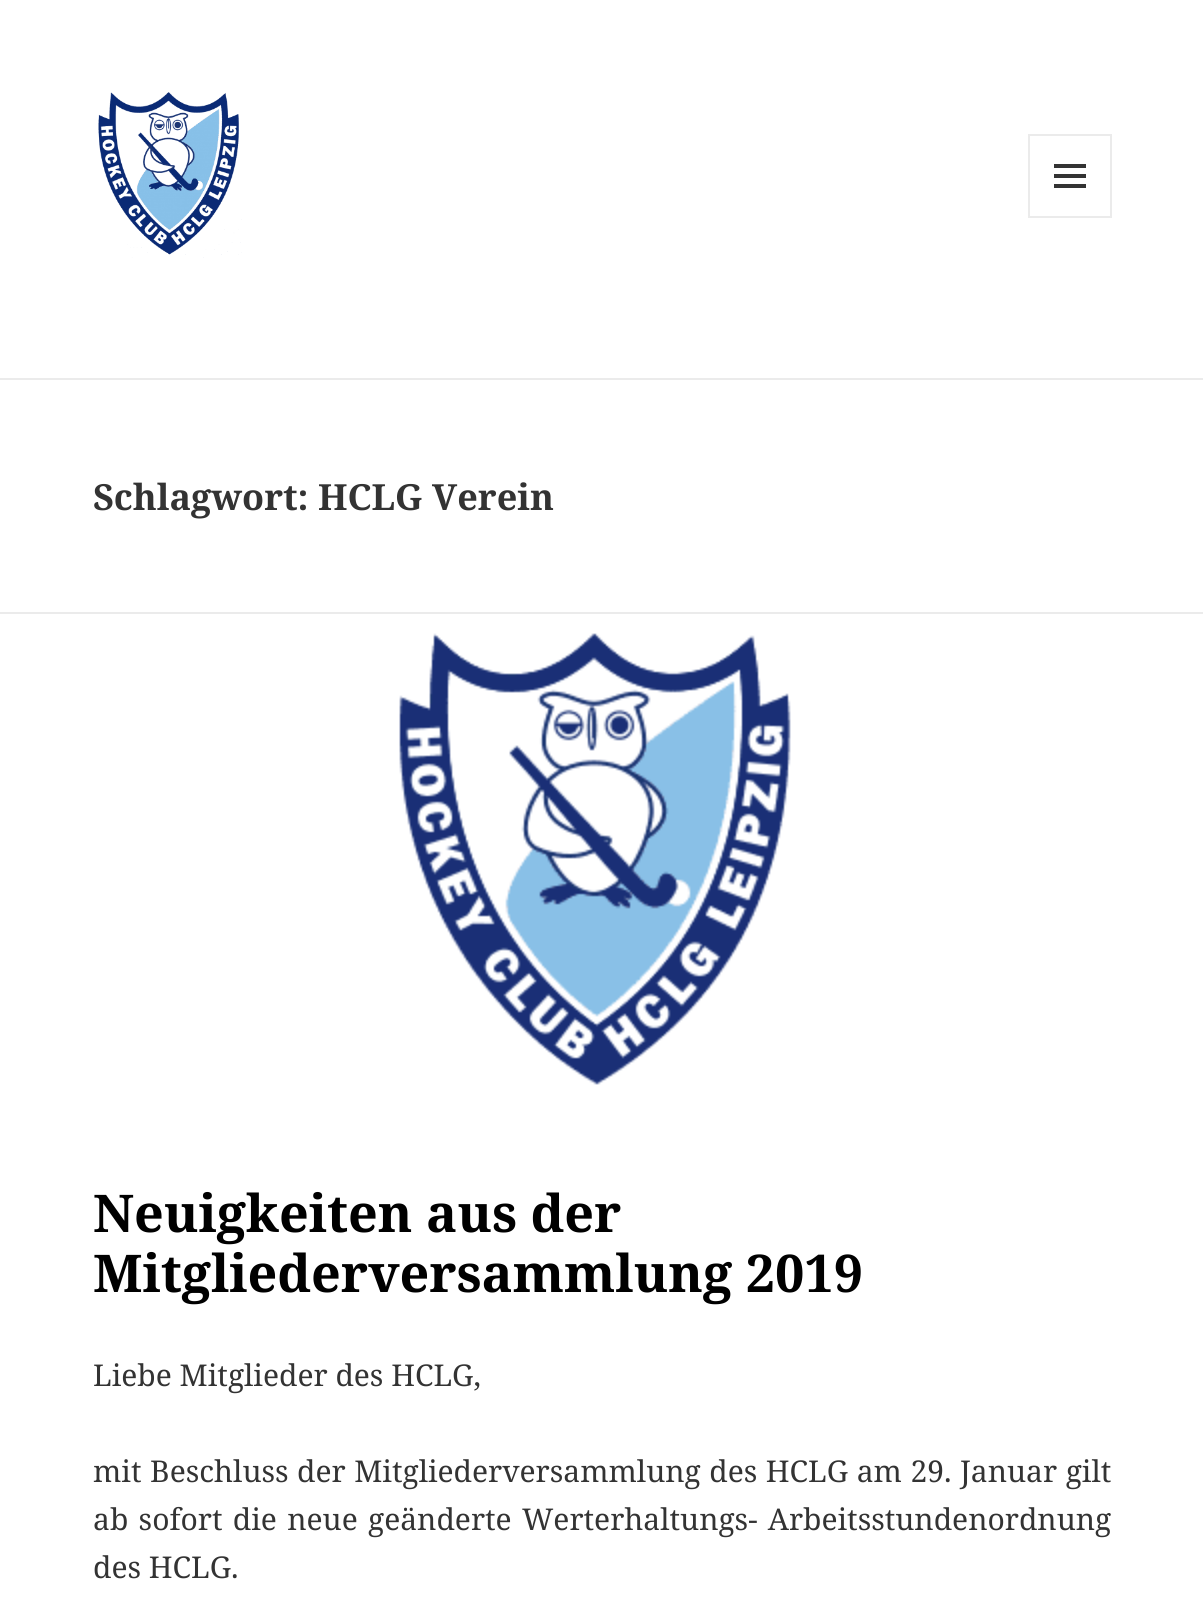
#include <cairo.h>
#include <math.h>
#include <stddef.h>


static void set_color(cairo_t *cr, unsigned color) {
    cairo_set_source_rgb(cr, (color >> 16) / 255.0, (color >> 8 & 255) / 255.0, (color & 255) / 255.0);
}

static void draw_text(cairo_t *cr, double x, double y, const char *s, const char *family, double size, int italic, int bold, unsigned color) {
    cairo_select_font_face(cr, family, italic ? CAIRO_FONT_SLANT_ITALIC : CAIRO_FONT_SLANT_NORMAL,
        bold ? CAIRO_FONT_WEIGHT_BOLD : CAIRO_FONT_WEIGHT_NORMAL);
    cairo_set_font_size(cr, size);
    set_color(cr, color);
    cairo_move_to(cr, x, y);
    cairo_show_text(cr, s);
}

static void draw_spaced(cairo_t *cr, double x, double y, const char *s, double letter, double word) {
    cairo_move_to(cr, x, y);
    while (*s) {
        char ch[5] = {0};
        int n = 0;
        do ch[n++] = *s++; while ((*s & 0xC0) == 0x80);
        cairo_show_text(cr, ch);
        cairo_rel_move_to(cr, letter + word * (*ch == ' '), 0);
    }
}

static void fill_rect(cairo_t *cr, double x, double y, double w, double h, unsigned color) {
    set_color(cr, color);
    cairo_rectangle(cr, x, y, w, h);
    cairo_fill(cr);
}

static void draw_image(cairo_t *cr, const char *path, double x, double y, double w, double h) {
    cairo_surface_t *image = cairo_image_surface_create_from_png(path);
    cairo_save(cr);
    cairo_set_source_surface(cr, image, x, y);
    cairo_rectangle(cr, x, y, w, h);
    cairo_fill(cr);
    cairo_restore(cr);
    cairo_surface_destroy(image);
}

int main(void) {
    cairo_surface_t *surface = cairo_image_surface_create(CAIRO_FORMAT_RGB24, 1203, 1604);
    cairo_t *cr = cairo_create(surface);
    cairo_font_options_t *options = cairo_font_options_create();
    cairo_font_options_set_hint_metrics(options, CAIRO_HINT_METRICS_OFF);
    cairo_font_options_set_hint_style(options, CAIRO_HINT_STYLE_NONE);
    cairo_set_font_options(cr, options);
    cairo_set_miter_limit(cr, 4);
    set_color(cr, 0xFFFFFF);
    cairo_paint(cr);
    fill_rect(cr, 0, 378, 1203, 2, 0xEBEBEB);
    draw_image(cr, "assets/img1.png", 98, 92, 144, 166);
    cairo_rectangle(cr, 1029, 135, 82, 82);
    cairo_stroke(cr);
    draw_image(cr, "assets/img2.png", 1054, 164, 32, 24);
    fill_rect(cr, 0, 612, 1203, 2, 0xEBEBEB);
    draw_text(cr, 93, 510, "Schlagwort: HCLG Verein", "Noto Serif", 36, 0, 1, 0x333333);
    draw_image(cr, "assets/img3.png", 399, 633, 392, 452);
    draw_text(cr, 93, 1232, "Neuigkeiten aus der", "Noto Serif", 52, 0, 1, 0x000000);
    draw_text(cr, 93, 1292, "Mitgliederversammlung 2019", "Noto Serif", 52, 0, 1, 0x000000);
    draw_text(cr, 93, 1386, "Liebe Mitglieder des HCLG,", "Noto Serif", 30, 0, 0, 0x333333);
    draw_spaced(cr, 93, 1482, "mit Beschluss der Mitgliederversammlung des HCLG am 29. Januar gilt", 0, 0.75);
    draw_spaced(cr, 93, 1530, "ab sofort die neue geänderte Werterhaltungs- Arbeitsstundenordnung", 0, 2.5);
    draw_text(cr, 93, 1578, "des HCLG.", "Noto Serif", 30, 0, 0, 0x333333);
    cairo_surface_write_to_png(surface, "output.png");
    cairo_font_options_destroy(options);
    cairo_destroy(cr);
    cairo_surface_destroy(surface);
    return 0;
}
